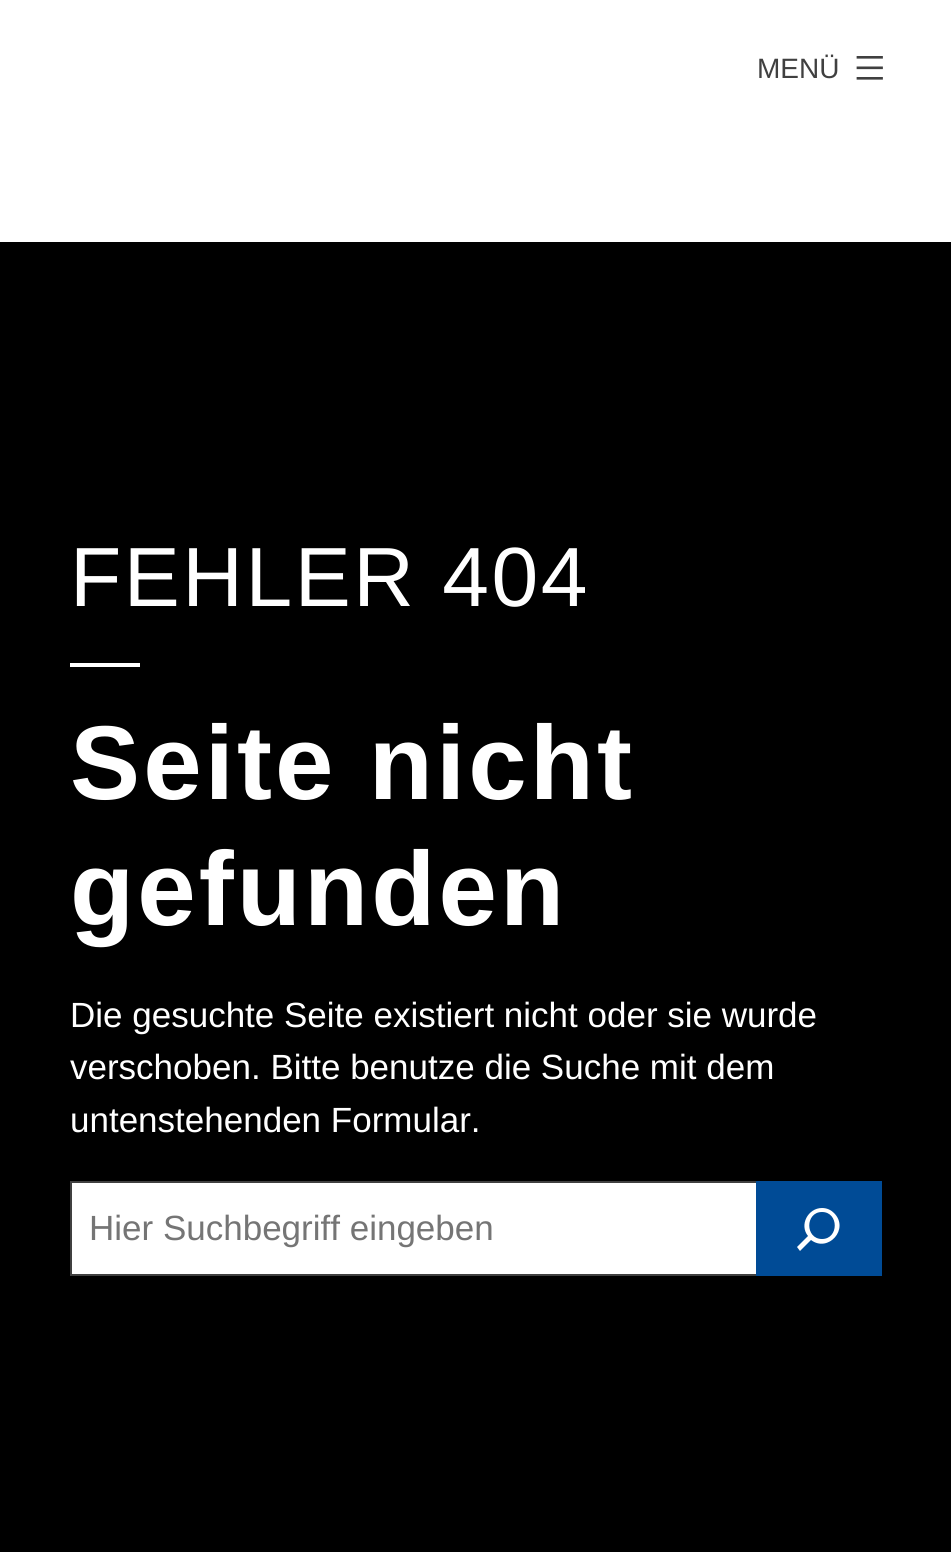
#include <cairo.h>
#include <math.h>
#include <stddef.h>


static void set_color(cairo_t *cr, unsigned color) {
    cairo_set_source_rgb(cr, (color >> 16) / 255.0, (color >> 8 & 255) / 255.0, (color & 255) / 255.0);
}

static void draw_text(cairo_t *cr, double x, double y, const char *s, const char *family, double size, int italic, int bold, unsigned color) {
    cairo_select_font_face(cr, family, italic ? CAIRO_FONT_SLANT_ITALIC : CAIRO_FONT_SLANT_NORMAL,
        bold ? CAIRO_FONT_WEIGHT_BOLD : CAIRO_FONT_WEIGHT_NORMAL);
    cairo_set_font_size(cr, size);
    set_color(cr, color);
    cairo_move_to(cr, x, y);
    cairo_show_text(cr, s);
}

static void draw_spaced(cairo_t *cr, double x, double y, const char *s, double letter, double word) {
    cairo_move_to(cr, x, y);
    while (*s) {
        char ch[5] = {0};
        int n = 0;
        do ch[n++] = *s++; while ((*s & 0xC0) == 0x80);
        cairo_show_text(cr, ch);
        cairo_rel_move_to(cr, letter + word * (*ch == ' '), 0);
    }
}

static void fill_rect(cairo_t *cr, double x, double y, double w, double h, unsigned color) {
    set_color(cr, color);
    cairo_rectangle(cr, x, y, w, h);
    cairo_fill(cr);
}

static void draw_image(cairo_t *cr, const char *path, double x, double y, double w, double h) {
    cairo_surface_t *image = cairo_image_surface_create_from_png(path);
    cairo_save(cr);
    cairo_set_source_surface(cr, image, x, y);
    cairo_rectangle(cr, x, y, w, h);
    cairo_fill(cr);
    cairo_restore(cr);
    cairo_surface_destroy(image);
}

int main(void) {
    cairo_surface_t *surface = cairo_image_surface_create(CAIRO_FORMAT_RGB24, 951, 1552);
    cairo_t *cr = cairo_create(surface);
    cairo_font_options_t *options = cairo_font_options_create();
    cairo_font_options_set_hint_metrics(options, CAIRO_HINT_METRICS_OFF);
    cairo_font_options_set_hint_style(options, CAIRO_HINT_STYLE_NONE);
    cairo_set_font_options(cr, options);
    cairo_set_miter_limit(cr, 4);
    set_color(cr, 0xFFFFFF);
    cairo_paint(cr);
    draw_text(cr, 757, 78, "MENÜ", "Liberation Sans", 28, 0, 0, 0x404040);
    draw_image(cr, "assets/img1.png", 856, 56, 27, 24);
    fill_rect(cr, 0, 242, 951, 1310, 0x000000);
    cairo_set_font_size(cr, 84);
    set_color(cr, 0xFFFFFF);
    draw_spaced(cr, 70, 606, "FEHLER 404", 2.5, 0);
    fill_rect(cr, 70, 663, 70, 4, 0xFFFFFF);
    cairo_select_font_face(cr, "Liberation Sans", CAIRO_FONT_SLANT_NORMAL, CAIRO_FONT_WEIGHT_BOLD);
    cairo_set_font_size(cr, 105);
    draw_spaced(cr, 70, 799, "Seite nicht", 3.1, 0);
    draw_spaced(cr, 70, 925, "gefunden", 3.1, 0);
    draw_text(cr, 70, 1027, "Die gesuchte Seite existiert nicht oder sie wurde", "Liberation Sans", 35, 0, 0, 0xFFFFFF);
    draw_text(cr, 70, 1079, "verschoben. Bitte benutze die Suche mit dem", "Liberation Sans", 35, 0, 0, 0xFFFFFF);
    draw_text(cr, 70, 1132, "untenstehenden Formular.", "Liberation Sans", 35, 0, 0, 0xFFFFFF);
    cairo_rectangle(cr, 71, 1182, 686, 93);
    cairo_fill_preserve(cr);
    set_color(cr, 0x404040);
    cairo_stroke(cr);
    draw_text(cr, 89, 1240, "Hier Suchbegriff eingeben", "Liberation Sans", 35, 0, 0, 0x757575);
    fill_rect(cr, 756, 1181, 126, 95, 0x004B96);
    set_color(cr, 0xFFFFFF);
    cairo_new_path(cr);
    cairo_move_to(cr, 822, 1208);
    cairo_curve_to(cr, 808, 1208, 799, 1225, 808, 1236);
    cairo_line_to(cr, 797, 1247);
    cairo_line_to(cr, 800, 1251);
    cairo_line_to(cr, 811, 1240);
    cairo_curve_to(cr, 828, 1253, 850, 1229, 834, 1213);
    cairo_curve_to(cr, 831, 1210, 827, 1208, 822, 1208);
    cairo_close_path(cr);
    cairo_move_to(cr, 822, 1239);
    cairo_curve_to(cr, 805, 1239, 805, 1212, 822, 1212);
    cairo_curve_to(cr, 839, 1212, 839, 1239, 822, 1239);
    cairo_close_path(cr);
    cairo_fill(cr);
    cairo_surface_write_to_png(surface, "output.png");
    cairo_font_options_destroy(options);
    cairo_destroy(cr);
    cairo_surface_destroy(surface);
    return 0;
}
